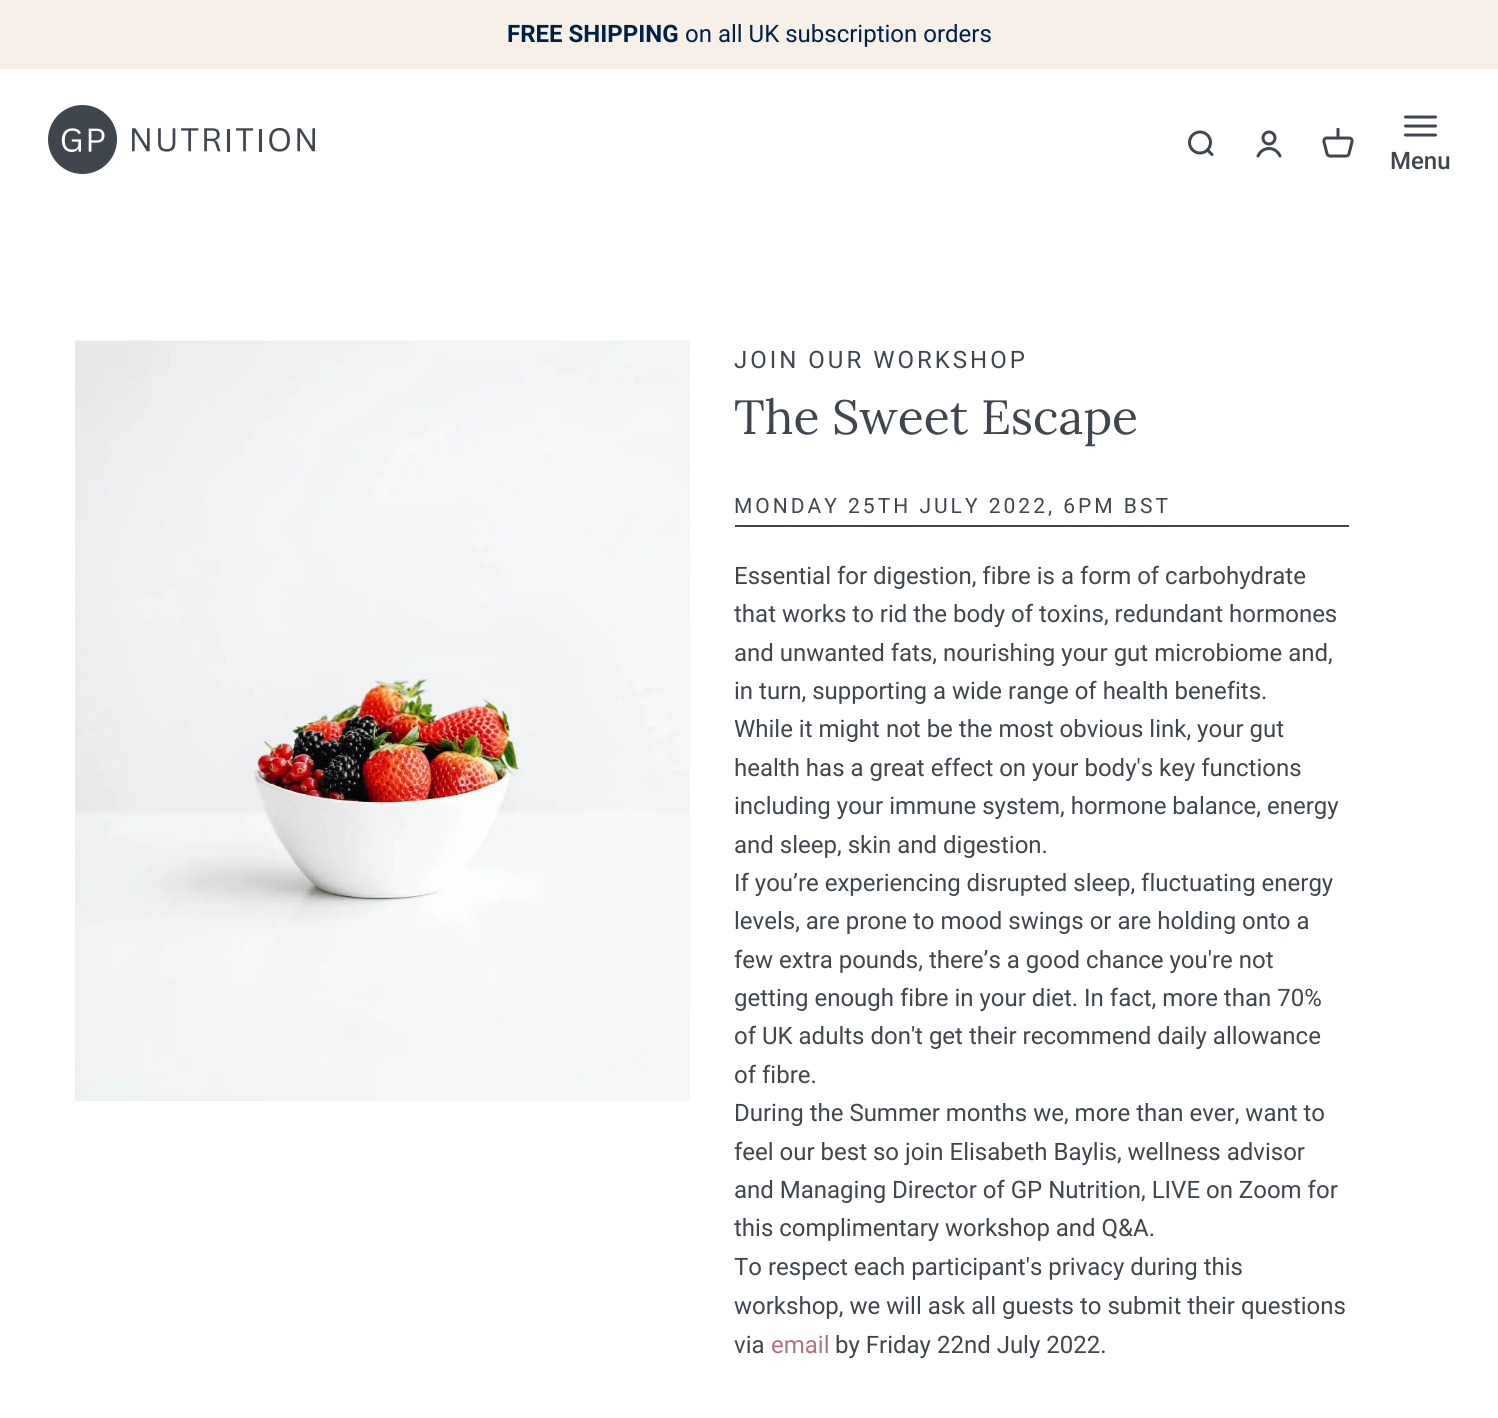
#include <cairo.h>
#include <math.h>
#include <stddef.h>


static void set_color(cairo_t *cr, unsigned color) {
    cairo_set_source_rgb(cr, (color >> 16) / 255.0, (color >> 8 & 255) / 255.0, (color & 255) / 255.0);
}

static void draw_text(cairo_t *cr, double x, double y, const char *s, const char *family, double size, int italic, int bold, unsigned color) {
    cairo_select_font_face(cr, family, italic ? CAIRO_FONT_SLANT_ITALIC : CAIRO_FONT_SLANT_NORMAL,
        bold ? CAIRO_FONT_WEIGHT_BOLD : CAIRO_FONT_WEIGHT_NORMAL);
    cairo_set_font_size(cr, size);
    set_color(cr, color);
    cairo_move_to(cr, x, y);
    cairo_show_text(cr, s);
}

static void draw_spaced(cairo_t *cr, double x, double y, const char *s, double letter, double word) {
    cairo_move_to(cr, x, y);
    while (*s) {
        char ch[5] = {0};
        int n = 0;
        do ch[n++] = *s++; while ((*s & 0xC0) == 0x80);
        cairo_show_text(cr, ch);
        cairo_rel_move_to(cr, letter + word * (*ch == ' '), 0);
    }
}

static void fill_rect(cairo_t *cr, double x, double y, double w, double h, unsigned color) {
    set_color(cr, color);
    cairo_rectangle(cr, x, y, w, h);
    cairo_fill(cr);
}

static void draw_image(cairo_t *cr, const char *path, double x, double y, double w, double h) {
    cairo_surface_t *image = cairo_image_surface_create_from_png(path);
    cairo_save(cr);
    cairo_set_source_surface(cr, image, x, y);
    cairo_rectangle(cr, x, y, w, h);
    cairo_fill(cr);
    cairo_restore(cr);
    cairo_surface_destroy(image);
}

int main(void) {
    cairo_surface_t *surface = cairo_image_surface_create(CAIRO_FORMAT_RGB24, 1498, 1418);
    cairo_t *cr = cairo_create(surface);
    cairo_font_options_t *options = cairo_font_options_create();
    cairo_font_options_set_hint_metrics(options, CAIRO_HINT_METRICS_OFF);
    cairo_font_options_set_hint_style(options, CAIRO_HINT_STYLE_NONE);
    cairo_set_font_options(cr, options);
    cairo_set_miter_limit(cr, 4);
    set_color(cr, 0xFFFFFF);
    cairo_paint(cr);
    fill_rect(cr, 0, 0, 1498, 69, 0xF7F0E8);
    draw_text(cr, 507, 42, "FREE SHIPPING", "Roboto", 24, 0, 1, 0x002147);
    draw_text(cr, 685, 42, "on all UK subscription orders", "Roboto", 24, 0, 0, 0x002147);
    draw_image(cr, "assets/img1.png", 48, 105, 267, 69);
    cairo_arc(cr, 1200, 142.5, 10.5, 0, 2 * M_PI);
    set_color(cr, 0x40464E);
    cairo_set_line_width(cr, 3);
    cairo_stroke(cr);
    cairo_new_path(cr);
    cairo_move_to(cr, 1207.5, 150);
    cairo_line_to(cr, 1212, 154.5);
    cairo_set_line_cap(cr, CAIRO_LINE_CAP_ROUND);
    cairo_set_line_join(cr, CAIRO_LINE_JOIN_ROUND);
    cairo_stroke(cr);
    cairo_arc(cr, 1269, 138, 6, 0, 2 * M_PI);
    cairo_set_line_cap(cr, CAIRO_LINE_CAP_BUTT);
    cairo_set_line_join(cr, CAIRO_LINE_JOIN_MITER);
    cairo_stroke(cr);
    cairo_new_path(cr);
    cairo_move_to(cr, 1258, 156);
    cairo_curve_to(cr, 1262.5, 146, 1275.5, 146, 1280, 156);
    cairo_set_line_cap(cr, CAIRO_LINE_CAP_ROUND);
    cairo_stroke(cr);
    draw_image(cr, "assets/img2.png", 1322, 128, 32, 30);
    cairo_new_path(cr);
    cairo_move_to(cr, 1405.5, 117);
    cairo_line_to(cr, 1435.5, 117);
    cairo_move_to(cr, 1405.5, 126);
    cairo_line_to(cr, 1435.5, 126);
    cairo_move_to(cr, 1405.5, 135);
    cairo_line_to(cr, 1435.5, 135);
    cairo_stroke(cr);
    draw_text(cr, 1390, 169, "Menu", "Roboto Medium", 24, 0, 0, 0x40464E);
    draw_image(cr, "assets/img3.png", 75, 340, 615, 761);
    cairo_select_font_face(cr, "Roboto", CAIRO_FONT_SLANT_NORMAL, CAIRO_FONT_WEIGHT_NORMAL);
    draw_spaced(cr, 734, 368, "JOIN OUR WORKSHOP", 3, 0);
    draw_text(cr, 734, 434, "The Sweet Escape", "Lora", 48, 0, 0, 0x40464E);
    cairo_select_font_face(cr, "Roboto", CAIRO_FONT_SLANT_NORMAL, CAIRO_FONT_WEIGHT_NORMAL);
    cairo_set_font_size(cr, 21);
    draw_spaced(cr, 734, 513, "MONDAY 25TH JULY 2022, 6PM BST", 3, 0);
    fill_rect(cr, 735, 525, 614, 2, 0x40464E);
    draw_text(cr, 734, 584, "Essential for digestion, fibre is a form of carbohydrate", "Roboto", 24, 0, 0, 0x40464E);
    draw_text(cr, 734, 622, "that works to rid the body of toxins, redundant hormones", "Roboto", 24, 0, 0, 0x40464E);
    draw_text(cr, 734, 661, "and unwanted fats, nourishing your gut microbiome and,", "Roboto", 24, 0, 0, 0x40464E);
    draw_text(cr, 734, 699, "in turn, supporting a wide range of health benefits.", "Roboto", 24, 0, 0, 0x40464E);
    draw_text(cr, 734, 737, "While it might not be the most obvious link, your gut", "Roboto", 24, 0, 0, 0x40464E);
    draw_text(cr, 734, 776, "health has a great effect on your body's key functions", "Roboto", 24, 0, 0, 0x40464E);
    draw_text(cr, 734, 814, "including your immune system, hormone balance, energy", "Roboto", 24, 0, 0, 0x40464E);
    draw_text(cr, 734, 853, "and sleep, skin and digestion.", "Roboto", 24, 0, 0, 0x40464E);
    draw_text(cr, 734, 891, "If you’re experiencing disrupted sleep, fluctuating energy", "Roboto", 24, 0, 0, 0x40464E);
    draw_text(cr, 734, 929, "levels, are prone to mood swings or are holding onto a", "Roboto", 24, 0, 0, 0x40464E);
    draw_text(cr, 734, 968, "few extra pounds, there’s a good chance you're not", "Roboto", 24, 0, 0, 0x40464E);
    draw_text(cr, 734, 1006, "getting enough fibre in your diet. In fact, more than 70%", "Roboto", 24, 0, 0, 0x40464E);
    draw_text(cr, 734, 1044, "of UK adults don't get their recommend daily allowance", "Roboto", 24, 0, 0, 0x40464E);
    draw_text(cr, 734, 1083, "of fibre.", "Roboto", 24, 0, 0, 0x40464E);
    draw_text(cr, 734, 1121, "During the Summer months we, more than ever, want to", "Roboto", 24, 0, 0, 0x40464E);
    draw_text(cr, 734, 1160, "feel our best so join Elisabeth Baylis, wellness advisor", "Roboto", 24, 0, 0, 0x40464E);
    draw_text(cr, 734, 1198, "and Managing Director of GP Nutrition, LIVE on Zoom for", "Roboto", 24, 0, 0, 0x40464E);
    draw_text(cr, 734, 1236, "this complimentary workshop and Q&A.", "Roboto", 24, 0, 0, 0x40464E);
    draw_text(cr, 734, 1275, "To respect each participant's privacy during this", "Roboto", 24, 0, 0, 0x40464E);
    draw_text(cr, 734, 1314, "workshop, we will ask all guests to submit their questions", "Roboto", 24, 0, 0, 0x40464E);
    draw_text(cr, 734, 1353, "via", "Roboto", 24, 0, 0, 0x40464E);
    draw_text(cr, 771, 1353, "email", "Roboto", 24, 0, 0, 0xB1737C);
    draw_text(cr, 835, 1353, "by Friday 22nd July 2022.", "Roboto", 24, 0, 0, 0x40464E);
    cairo_surface_write_to_png(surface, "output.png");
    cairo_font_options_destroy(options);
    cairo_destroy(cr);
    cairo_surface_destroy(surface);
    return 0;
}
